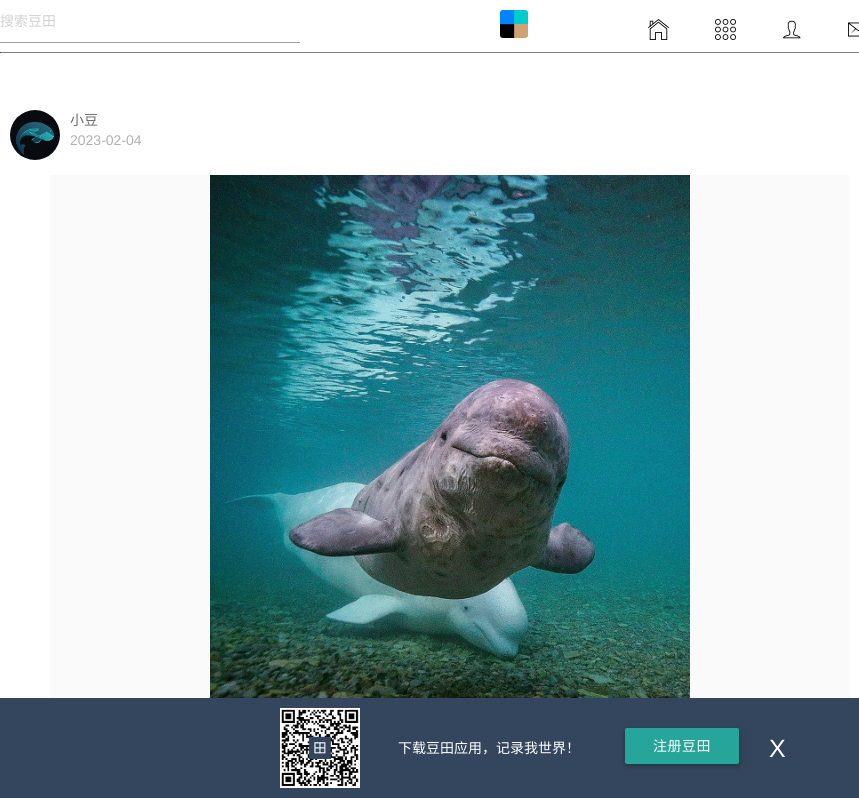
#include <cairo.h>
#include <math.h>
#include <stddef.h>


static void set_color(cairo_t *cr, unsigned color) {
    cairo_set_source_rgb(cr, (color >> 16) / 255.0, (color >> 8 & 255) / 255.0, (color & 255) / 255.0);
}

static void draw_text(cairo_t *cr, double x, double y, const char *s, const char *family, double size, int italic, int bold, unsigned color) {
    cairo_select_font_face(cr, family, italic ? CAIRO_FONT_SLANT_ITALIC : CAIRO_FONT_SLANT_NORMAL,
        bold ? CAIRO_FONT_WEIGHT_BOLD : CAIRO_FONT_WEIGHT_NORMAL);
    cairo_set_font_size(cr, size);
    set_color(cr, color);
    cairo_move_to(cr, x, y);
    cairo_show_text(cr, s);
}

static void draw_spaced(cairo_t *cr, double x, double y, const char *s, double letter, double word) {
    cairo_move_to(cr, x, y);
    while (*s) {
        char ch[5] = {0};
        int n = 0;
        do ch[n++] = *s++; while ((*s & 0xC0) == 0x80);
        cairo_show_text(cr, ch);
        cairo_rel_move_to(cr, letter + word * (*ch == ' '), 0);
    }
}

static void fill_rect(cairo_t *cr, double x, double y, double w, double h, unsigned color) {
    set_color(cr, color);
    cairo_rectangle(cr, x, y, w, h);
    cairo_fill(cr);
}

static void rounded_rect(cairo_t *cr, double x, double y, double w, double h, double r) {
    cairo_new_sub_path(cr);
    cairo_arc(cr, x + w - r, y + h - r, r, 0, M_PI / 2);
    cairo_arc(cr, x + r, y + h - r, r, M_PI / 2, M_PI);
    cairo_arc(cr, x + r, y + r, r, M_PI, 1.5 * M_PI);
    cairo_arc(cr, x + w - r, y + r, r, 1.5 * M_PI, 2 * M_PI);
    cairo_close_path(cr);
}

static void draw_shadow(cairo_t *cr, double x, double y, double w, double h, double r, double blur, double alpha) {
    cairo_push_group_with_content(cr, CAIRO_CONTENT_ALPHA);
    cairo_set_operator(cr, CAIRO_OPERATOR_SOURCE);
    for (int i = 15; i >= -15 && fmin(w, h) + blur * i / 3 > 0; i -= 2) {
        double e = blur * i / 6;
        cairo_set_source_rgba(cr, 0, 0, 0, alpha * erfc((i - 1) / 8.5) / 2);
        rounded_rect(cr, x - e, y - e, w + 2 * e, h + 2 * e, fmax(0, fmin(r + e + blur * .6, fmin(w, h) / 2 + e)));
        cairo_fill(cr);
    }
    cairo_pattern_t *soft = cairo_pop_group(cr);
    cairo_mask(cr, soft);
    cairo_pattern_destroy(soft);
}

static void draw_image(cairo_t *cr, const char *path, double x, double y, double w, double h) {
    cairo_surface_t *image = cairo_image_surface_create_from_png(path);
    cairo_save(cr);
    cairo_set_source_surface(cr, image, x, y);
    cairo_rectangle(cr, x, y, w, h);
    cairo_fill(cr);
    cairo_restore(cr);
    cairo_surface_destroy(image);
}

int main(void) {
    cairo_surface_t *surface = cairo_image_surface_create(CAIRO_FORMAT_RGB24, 859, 798);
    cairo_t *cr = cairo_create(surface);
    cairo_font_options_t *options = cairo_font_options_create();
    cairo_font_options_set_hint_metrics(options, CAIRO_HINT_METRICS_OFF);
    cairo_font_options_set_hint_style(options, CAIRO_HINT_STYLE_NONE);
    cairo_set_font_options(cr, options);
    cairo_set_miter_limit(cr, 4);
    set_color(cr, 0xFFFFFF);
    cairo_paint(cr);
    cairo_rectangle(cr, 0.25, 0.25, 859.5, 52.5);
    set_color(cr, 0x000000);
    cairo_set_line_width(cr, 0.5);
    cairo_stroke(cr);
    fill_rect(cr, 0, 0, 859, 52, 0xFFFFFF);
    fill_rect(cr, 0, 42, 300, 1, 0x9E9E9E);
    draw_text(cr, 0, 26, "搜索豆田", "Noto Sans CJK SC", 14, 0, 0, 0xD1D1D1);
    draw_image(cr, "assets/img1.png", 500, 10, 28, 28);
    draw_image(cr, "assets/img2.png", 648, 19, 21, 21);
    draw_image(cr, "assets/img3.png", 715, 19, 21, 21);
    draw_image(cr, "assets/img4.png", 783, 20, 18, 19);
    draw_image(cr, "assets/img5.png", 848, 22, 11, 15);
    draw_image(cr, "assets/img6.png", 10, 110, 50, 50);
    draw_text(cr, 70, 125, "小豆", "Noto Sans CJK SC", 14, 0, 0, 0x6B6B6B);
    draw_text(cr, 70, 145, "2023-02-04", "Liberation Sans", 14, 0, 0, 0xB1B1B1);
    fill_rect(cr, 50, 175, 800, 523, 0xFAFAFA);
    draw_image(cr, "assets/img7.png", 210, 175, 480, 523);
    fill_rect(cr, 0, 698, 859, 100, 0x33465D);
    fill_rect(cr, 280, 708, 80, 80, 0xFFFFFF);
    draw_image(cr, "assets/img8.png", 281, 709, 78, 78);
    draw_text(cr, 398, 753, "下载豆田应用，记录我世界！", "Noto Sans CJK SC", 14, 0, 0, 0xFFFFFF);
    set_color(cr, 0x000000);
    draw_shadow(cr, 625, 730, 114, 36, 2, 5, 0.12);
    draw_shadow(cr, 625, 730, 114, 36, 2, 2.5, 0.16);
    set_color(cr, 0x26A69A);
    rounded_rect(cr, 625, 728, 114, 36, 2);
    cairo_fill(cr);
    set_color(cr, 0xFFFFFF);
    draw_spaced(cr, 653, 751, "注册豆田", 0.5, 0);
    draw_text(cr, 769, 757, "X", "Liberation Sans", 25, 0, 0, 0xFFFFFF);
    cairo_surface_write_to_png(surface, "output.png");
    cairo_font_options_destroy(options);
    cairo_destroy(cr);
    cairo_surface_destroy(surface);
    return 0;
}
